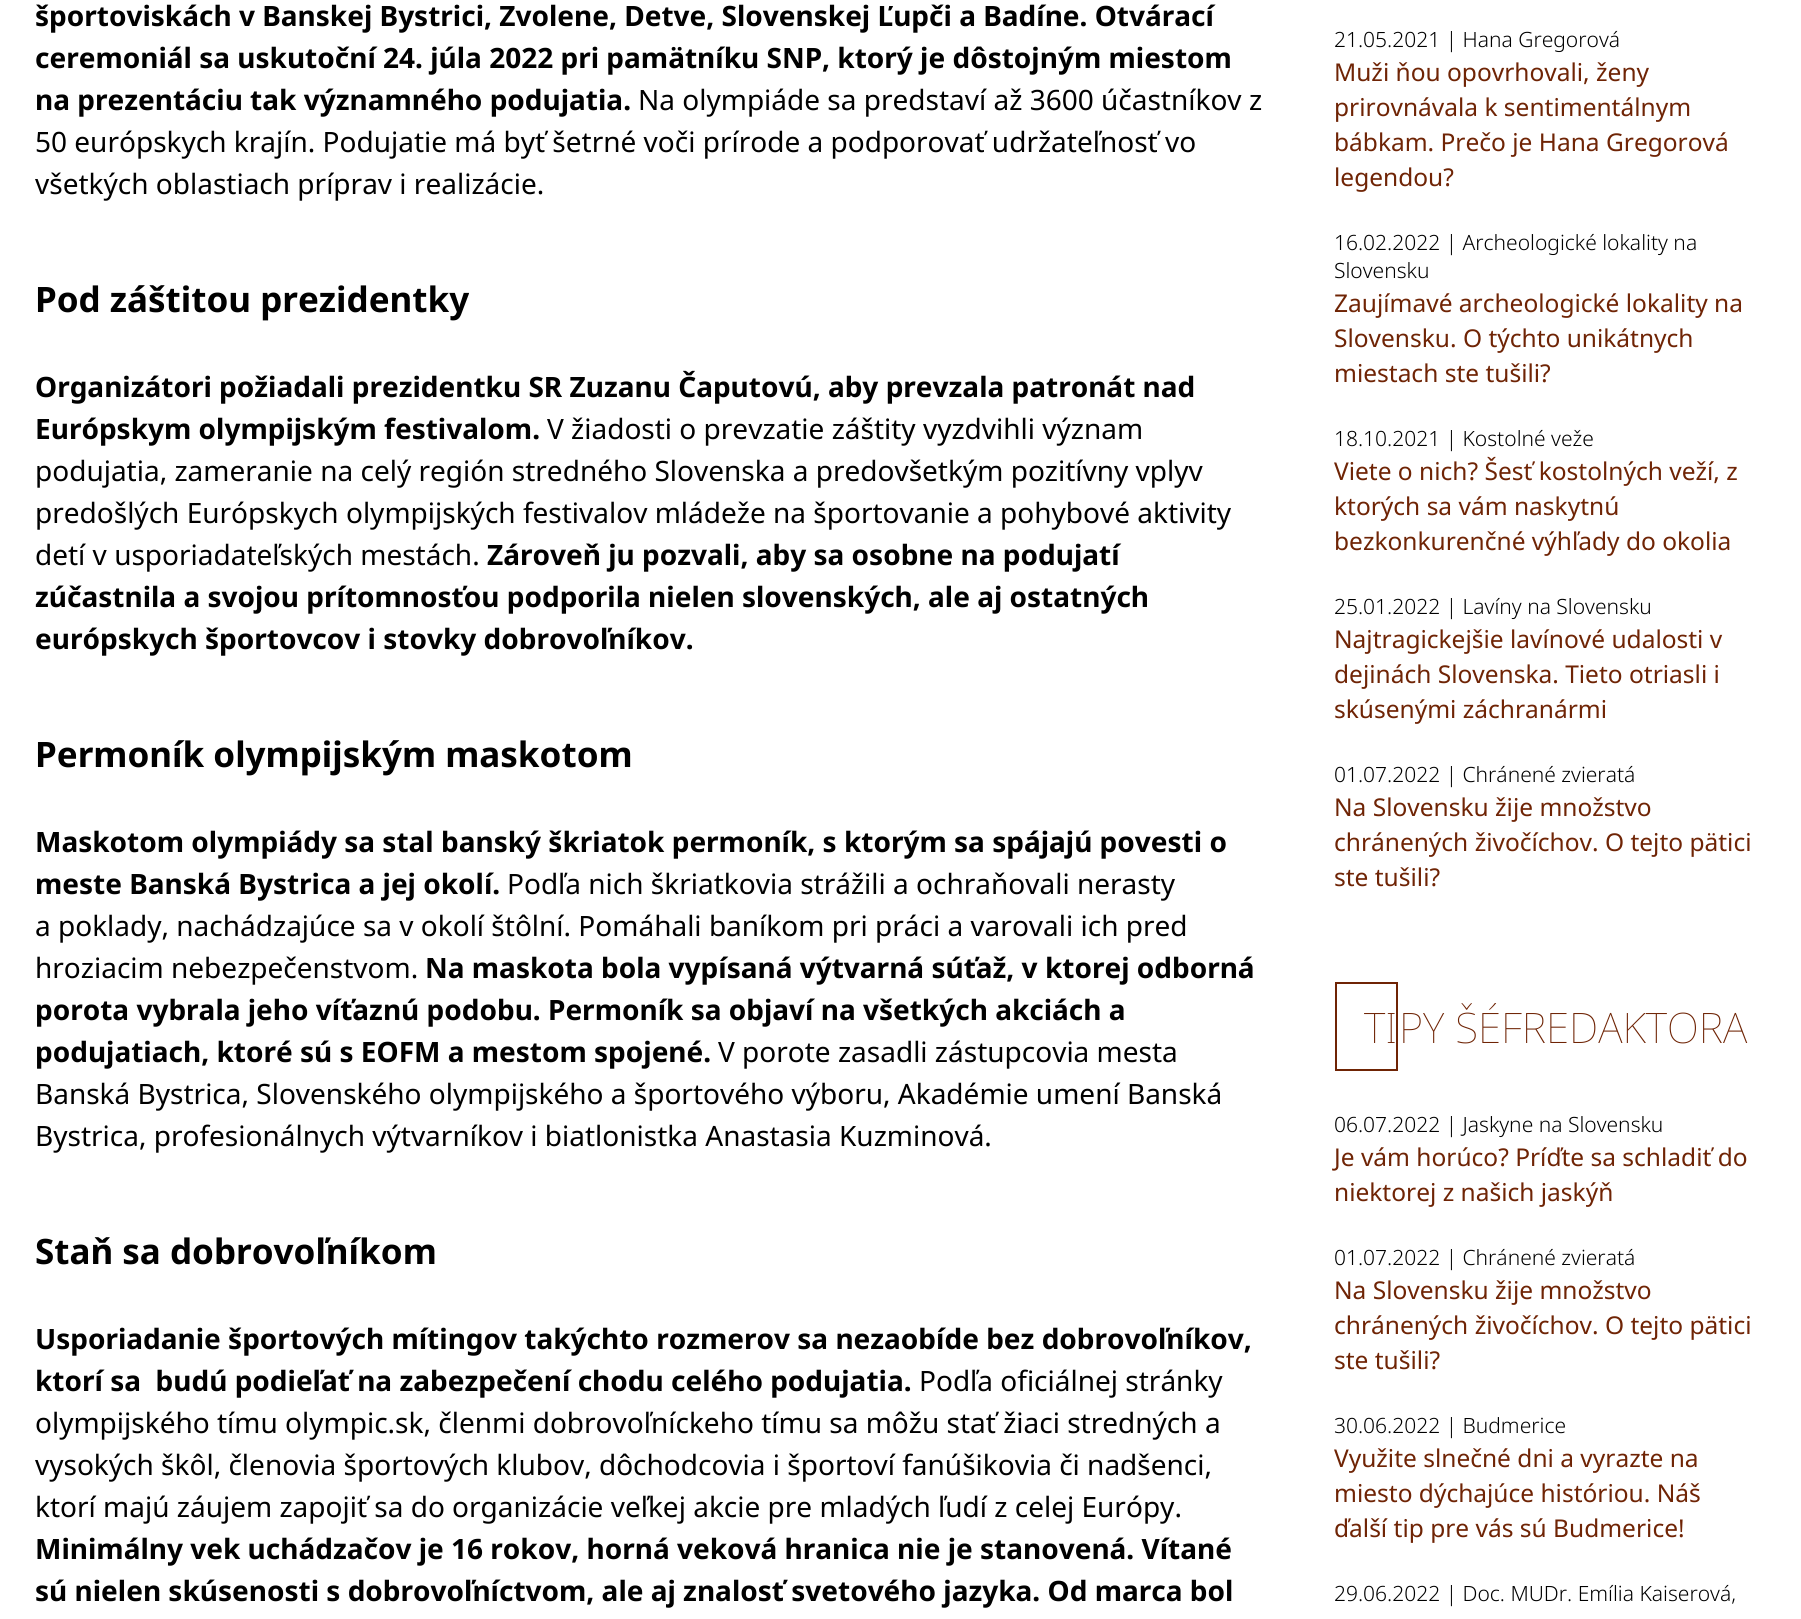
#include <cairo.h>
#include <math.h>
#include <stddef.h>


static void set_color(cairo_t *cr, unsigned color) {
    cairo_set_source_rgb(cr, (color >> 16) / 255.0, (color >> 8 & 255) / 255.0, (color & 255) / 255.0);
}

static void draw_text(cairo_t *cr, double x, double y, const char *s, const char *family, double size, int italic, int bold, unsigned color) {
    cairo_select_font_face(cr, family, italic ? CAIRO_FONT_SLANT_ITALIC : CAIRO_FONT_SLANT_NORMAL,
        bold ? CAIRO_FONT_WEIGHT_BOLD : CAIRO_FONT_WEIGHT_NORMAL);
    cairo_set_font_size(cr, size);
    set_color(cr, color);
    cairo_move_to(cr, x, y);
    cairo_show_text(cr, s);
}

int main(void) {
    cairo_surface_t *surface = cairo_image_surface_create(CAIRO_FORMAT_RGB24, 1801, 1619);
    cairo_t *cr = cairo_create(surface);
    cairo_font_options_t *options = cairo_font_options_create();
    cairo_font_options_set_hint_metrics(options, CAIRO_HINT_METRICS_OFF);
    cairo_font_options_set_hint_style(options, CAIRO_HINT_STYLE_NONE);
    cairo_set_font_options(cr, options);
    cairo_set_miter_limit(cr, 4);
    set_color(cr, 0xFFFFFF);
    cairo_paint(cr);
    draw_text(cr, 35, 26, "športoviskách v Banskej Bystrici, Zvolene, Detve, Slovenskej Ľupči a Badíne. Otvárací", "Noto Sans", 28, 0, 1, 0x000000);
    draw_text(cr, 35, 68, "ceremoniál sa uskutoční 24. júla 2022 pri pamätníku SNP, ktorý je dôstojným miestom", "Noto Sans", 28, 0, 1, 0x000000);
    draw_text(cr, 35, 110, "na prezentáciu tak významného podujatia.", "Noto Sans", 28, 0, 1, 0x000000);
    draw_text(cr, 638, 110, "Na olympiáde sa predstaví až 3600 účastníkov z", "Noto Sans", 28, 0, 0, 0x000000);
    draw_text(cr, 35, 152, "50 európskych krajín. Podujatie má byť šetrné voči prírode a podporovať udržateľnosť vo", "Noto Sans", 28, 0, 0, 0x000000);
    draw_text(cr, 35, 194, "všetkých oblastiach príprav i realizácie.", "Noto Sans", 28, 0, 0, 0x000000);
    draw_text(cr, 35, 312, "Pod záštitou prezidentky", "Noto Sans", 35, 0, 1, 0x000000);
    draw_text(cr, 35, 397, "Organizátori požiadali prezidentku SR Zuzanu Čaputovú, aby prevzala patronát nad", "Noto Sans", 28, 0, 1, 0x000000);
    draw_text(cr, 35, 439, "Európskym olympijským festivalom.", "Noto Sans", 28, 0, 1, 0x000000);
    draw_text(cr, 547, 439, "V žiadosti o prevzatie záštity vyzdvihli význam", "Noto Sans", 28, 0, 0, 0x000000);
    draw_text(cr, 35, 481, "podujatia, zameranie na celý región stredného Slovenska a predovšetkým pozitívny vplyv", "Noto Sans", 28, 0, 0, 0x000000);
    draw_text(cr, 35, 523, "predošlých Európskych olympijských festivalov mládeže na športovanie a pohybové aktivity", "Noto Sans", 28, 0, 0, 0x000000);
    draw_text(cr, 35, 565, "detí v usporiadateľských mestách.", "Noto Sans", 28, 0, 0, 0x000000);
    draw_text(cr, 487, 565, "Zároveň ju pozvali, aby sa osobne na podujatí", "Noto Sans", 28, 0, 1, 0x000000);
    draw_text(cr, 35, 607, "zúčastnila a svojou prítomnosťou podporila nielen slovenských, ale aj ostatných", "Noto Sans", 28, 0, 1, 0x000000);
    draw_text(cr, 35, 649, "európskych športovcov i stovky dobrovoľníkov.", "Noto Sans", 28, 0, 1, 0x000000);
    draw_text(cr, 35, 767, "Permoník olympijským maskotom", "Noto Sans", 35, 0, 1, 0x000000);
    draw_text(cr, 35, 852, "Maskotom olympiády sa stal banský škriatok permoník, s ktorým sa spájajú povesti o", "Noto Sans", 28, 0, 1, 0x000000);
    draw_text(cr, 35, 894, "meste Banská Bystrica a jej okolí.", "Noto Sans", 28, 0, 1, 0x000000);
    draw_text(cr, 507, 894, "Podľa nich škriatkovia strážili a ochraňovali nerasty", "Noto Sans", 28, 0, 0, 0x000000);
    draw_text(cr, 35, 936, "a poklady, nachádzajúce sa v okolí štôlní. Pomáhali baníkom pri práci a varovali ich pred", "Noto Sans", 28, 0, 0, 0x000000);
    draw_text(cr, 35, 978, "hroziacim nebezpečenstvom.", "Noto Sans", 28, 0, 0, 0x000000);
    draw_text(cr, 425, 978, "Na maskota bola vypísaná výtvarná súťaž, v ktorej odborná", "Noto Sans", 28, 0, 1, 0x000000);
    draw_text(cr, 35, 1020, "porota vybrala jeho víťaznú podobu. Permoník sa objaví na všetkých akciách a", "Noto Sans", 28, 0, 1, 0x000000);
    draw_text(cr, 35, 1062, "podujatiach, ktoré sú s EOFM a mestom spojené.", "Noto Sans", 28, 0, 1, 0x000000);
    draw_text(cr, 718, 1062, "V porote zasadli zástupcovia mesta", "Noto Sans", 28, 0, 0, 0x000000);
    draw_text(cr, 35, 1104, "Banská Bystrica, Slovenského olympijského a športového výboru, Akadémie umení Banská", "Noto Sans", 28, 0, 0, 0x000000);
    draw_text(cr, 35, 1146, "Bystrica, profesionálnych výtvarníkov i biatlonistka Anastasia Kuzminová.", "Noto Sans", 28, 0, 0, 0x000000);
    draw_text(cr, 35, 1264, "Staň sa dobrovoľníkom", "Noto Sans", 35, 0, 1, 0x000000);
    draw_text(cr, 35, 1349, "Usporiadanie športových mítingov takýchto rozmerov sa nezaobíde bez dobrovoľníkov,", "Noto Sans", 28, 0, 1, 0x000000);
    draw_text(cr, 35, 1391, "ktorí sa  budú podieľať na zabezpečení chodu celého podujatia.", "Noto Sans", 28, 0, 1, 0x000000);
    draw_text(cr, 919, 1391, "Podľa oficiálnej stránky", "Noto Sans", 28, 0, 0, 0x000000);
    draw_text(cr, 35, 1433, "olympijského tímu olympic.sk, členmi dobrovoľníckeho tímu sa môžu stať žiaci stredných a", "Noto Sans", 28, 0, 0, 0x000000);
    draw_text(cr, 35, 1475, "vysokých škôl, členovia športových klubov, dôchodcovia i športoví fanúšikovia či nadšenci,", "Noto Sans", 28, 0, 0, 0x000000);
    draw_text(cr, 35, 1517, "ktorí majú záujem zapojiť sa do organizácie veľkej akcie pre mladých ľudí z celej Európy.", "Noto Sans", 28, 0, 0, 0x000000);
    draw_text(cr, 35, 1559, "Minimálny vek uchádzačov je 16 rokov, horná veková hranica nie je stanovená. Vítané", "Noto Sans", 28, 0, 1, 0x000000);
    draw_text(cr, 35, 1601, "sú nielen skúsenosti s dobrovoľníctvom, ale aj znalosť svetového jazyka. Od marca bol", "Noto Sans", 28, 0, 1, 0x000000);
    draw_text(cr, 1334, 47, "21.05.2021 | Hana Gregorová", "Noto Sans Light", 21, 0, 0, 0x000000);
    draw_text(cr, 1334, 81, "Muži ňou opovrhovali, ženy", "Noto Sans", 24.5, 0, 0, 0x6F2405);
    draw_text(cr, 1334, 116, "prirovnávala k sentimentálnym", "Noto Sans", 24.5, 0, 0, 0x6F2405);
    draw_text(cr, 1334, 151, "bábkam. Prečo je Hana Gregorová", "Noto Sans", 24.5, 0, 0, 0x6F2405);
    draw_text(cr, 1334, 186, "legendou?", "Noto Sans", 24.5, 0, 0, 0x6F2405);
    draw_text(cr, 1334, 250, "16.02.2022 | Archeologické lokality na", "Noto Sans Light", 21, 0, 0, 0x000000);
    draw_text(cr, 1334, 278, "Slovensku", "Noto Sans Light", 21, 0, 0, 0x000000);
    draw_text(cr, 1334, 312, "Zaujímavé archeologické lokality na", "Noto Sans", 24.5, 0, 0, 0x6F2405);
    draw_text(cr, 1334, 347, "Slovensku. O týchto unikátnych", "Noto Sans", 24.5, 0, 0, 0x6F2405);
    draw_text(cr, 1334, 382, "miestach ste tušili?", "Noto Sans", 24.5, 0, 0, 0x6F2405);
    draw_text(cr, 1334, 446, "18.10.2021 | Kostolné veže", "Noto Sans Light", 21, 0, 0, 0x000000);
    draw_text(cr, 1334, 480, "Viete o nich? Šesť kostolných veží, z", "Noto Sans", 24.5, 0, 0, 0x6F2405);
    draw_text(cr, 1334, 515, "ktorých sa vám naskytnú", "Noto Sans", 24.5, 0, 0, 0x6F2405);
    draw_text(cr, 1334, 550, "bezkonkurenčné výhľady do okolia", "Noto Sans", 24.5, 0, 0, 0x6F2405);
    draw_text(cr, 1334, 614, "25.01.2022 | Lavíny na Slovensku", "Noto Sans Light", 21, 0, 0, 0x000000);
    draw_text(cr, 1334, 648, "Najtragickejšie lavínové udalosti v", "Noto Sans", 24.5, 0, 0, 0x6F2405);
    draw_text(cr, 1334, 683, "dejinách Slovenska. Tieto otriasli i", "Noto Sans", 24.5, 0, 0, 0x6F2405);
    draw_text(cr, 1334, 718, "skúsenými záchranármi", "Noto Sans", 24.5, 0, 0, 0x6F2405);
    draw_text(cr, 1334, 782, "01.07.2022 | Chránené zvieratá", "Noto Sans Light", 21, 0, 0, 0x000000);
    draw_text(cr, 1334, 816, "Na Slovensku žije množstvo", "Noto Sans", 24.5, 0, 0, 0x6F2405);
    draw_text(cr, 1334, 851, "chránených živočíchov. O tejto pätici", "Noto Sans", 24.5, 0, 0, 0x6F2405);
    draw_text(cr, 1334, 886, "ste tušili?", "Noto Sans", 24.5, 0, 0, 0x6F2405);
    cairo_rectangle(cr, 1336, 983, 61, 87);
    cairo_stroke(cr);
    draw_text(cr, 1364, 1043, "TI", "Noto Sans Thin", 42, 0, 0, 0x6F2405);
    draw_text(cr, 1399, 1043, "PY ŠÉFREDAKTORA", "Noto Sans Thin", 42, 0, 0, 0x6F2405);
    draw_text(cr, 1334, 1132, "06.07.2022 | Jaskyne na Slovensku", "Noto Sans Light", 21, 0, 0, 0x000000);
    draw_text(cr, 1334, 1166, "Je vám horúco? Príďte sa schladiť do", "Noto Sans", 24.5, 0, 0, 0x6F2405);
    draw_text(cr, 1334, 1201, "niektorej z našich jaskýň", "Noto Sans", 24.5, 0, 0, 0x6F2405);
    draw_text(cr, 1334, 1265, "01.07.2022 | Chránené zvieratá", "Noto Sans Light", 21, 0, 0, 0x000000);
    draw_text(cr, 1334, 1299, "Na Slovensku žije množstvo", "Noto Sans", 24.5, 0, 0, 0x6F2405);
    draw_text(cr, 1334, 1334, "chránených živočíchov. O tejto pätici", "Noto Sans", 24.5, 0, 0, 0x6F2405);
    draw_text(cr, 1334, 1369, "ste tušili?", "Noto Sans", 24.5, 0, 0, 0x6F2405);
    draw_text(cr, 1334, 1433, "30.06.2022 | Budmerice", "Noto Sans Light", 21, 0, 0, 0x000000);
    draw_text(cr, 1334, 1467, "Využite slnečné dni a vyrazte na", "Noto Sans", 24.5, 0, 0, 0x6F2405);
    draw_text(cr, 1334, 1502, "miesto dýchajúce históriou. Náš", "Noto Sans", 24.5, 0, 0, 0x6F2405);
    draw_text(cr, 1334, 1537, "ďalší tip pre vás sú Budmerice!", "Noto Sans", 24.5, 0, 0, 0x6F2405);
    draw_text(cr, 1334, 1601, "29.06.2022 | Doc. MUDr. Emília Kaiserová,", "Noto Sans Light", 21, 0, 0, 0x000000);
    cairo_surface_write_to_png(surface, "output.png");
    cairo_font_options_destroy(options);
    cairo_destroy(cr);
    cairo_surface_destroy(surface);
    return 0;
}
